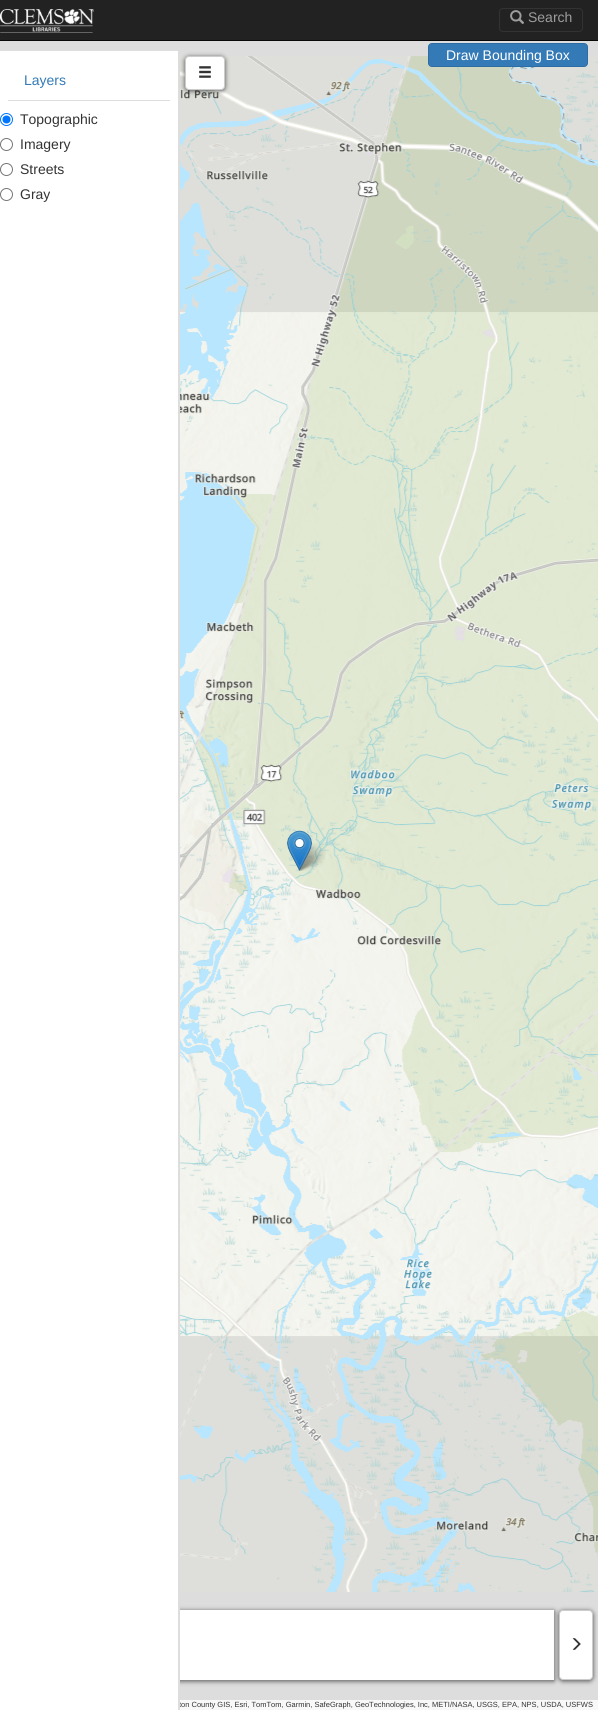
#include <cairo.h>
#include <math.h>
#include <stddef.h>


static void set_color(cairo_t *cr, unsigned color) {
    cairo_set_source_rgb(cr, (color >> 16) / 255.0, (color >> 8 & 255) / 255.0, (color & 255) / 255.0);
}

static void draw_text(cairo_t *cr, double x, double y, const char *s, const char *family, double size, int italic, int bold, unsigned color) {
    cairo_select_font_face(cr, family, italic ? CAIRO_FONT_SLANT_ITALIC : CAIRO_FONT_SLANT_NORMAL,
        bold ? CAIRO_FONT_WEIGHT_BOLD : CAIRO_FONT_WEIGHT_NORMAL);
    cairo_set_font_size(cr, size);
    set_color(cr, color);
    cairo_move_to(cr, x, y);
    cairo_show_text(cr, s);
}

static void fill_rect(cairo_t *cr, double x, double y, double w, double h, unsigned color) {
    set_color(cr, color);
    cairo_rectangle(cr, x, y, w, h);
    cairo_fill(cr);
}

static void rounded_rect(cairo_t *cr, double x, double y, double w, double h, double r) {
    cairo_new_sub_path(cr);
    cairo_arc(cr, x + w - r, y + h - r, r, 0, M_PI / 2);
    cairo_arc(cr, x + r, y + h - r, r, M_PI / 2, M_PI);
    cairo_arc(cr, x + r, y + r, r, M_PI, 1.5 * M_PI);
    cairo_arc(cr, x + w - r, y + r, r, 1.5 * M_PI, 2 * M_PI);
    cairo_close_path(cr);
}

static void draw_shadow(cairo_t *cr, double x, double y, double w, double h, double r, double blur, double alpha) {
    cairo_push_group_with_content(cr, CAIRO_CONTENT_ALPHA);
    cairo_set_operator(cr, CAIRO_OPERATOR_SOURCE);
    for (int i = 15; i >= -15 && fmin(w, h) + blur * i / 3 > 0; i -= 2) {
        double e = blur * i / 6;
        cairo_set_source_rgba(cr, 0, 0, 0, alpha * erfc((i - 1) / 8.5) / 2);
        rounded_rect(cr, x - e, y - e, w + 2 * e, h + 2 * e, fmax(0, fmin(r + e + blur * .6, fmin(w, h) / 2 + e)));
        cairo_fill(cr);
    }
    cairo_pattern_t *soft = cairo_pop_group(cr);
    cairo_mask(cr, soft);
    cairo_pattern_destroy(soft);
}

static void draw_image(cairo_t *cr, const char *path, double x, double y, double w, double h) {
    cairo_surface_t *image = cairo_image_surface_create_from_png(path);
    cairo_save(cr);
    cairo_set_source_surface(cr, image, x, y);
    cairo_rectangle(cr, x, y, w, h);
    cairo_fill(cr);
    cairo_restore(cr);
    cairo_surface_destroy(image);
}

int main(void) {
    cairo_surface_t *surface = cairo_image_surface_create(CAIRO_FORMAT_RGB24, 598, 1710);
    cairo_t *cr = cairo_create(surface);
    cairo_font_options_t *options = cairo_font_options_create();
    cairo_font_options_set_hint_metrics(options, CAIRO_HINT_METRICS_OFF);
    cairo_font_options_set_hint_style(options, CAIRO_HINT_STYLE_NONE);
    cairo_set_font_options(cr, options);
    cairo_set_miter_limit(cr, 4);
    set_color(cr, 0xDDDDDD);
    cairo_paint(cr);
    fill_rect(cr, 0, 0, 598, 40, 0x222222);
    fill_rect(cr, 0, 40, 598, 1, 0x080808);
    draw_image(cr, "assets/img1.png", 0, 9, 94, 24);
    rounded_rect(cr, 499.5, 8.5, 83, 23, 3.5);
    set_color(cr, 0x333333);
    cairo_set_line_width(cr, 1);
    cairo_stroke(cr);
    draw_image(cr, "assets/img2.png", 510, 10, 14, 14);
    draw_text(cr, 528, 22, "Search", "Liberation Sans", 14, 0, 0, 0x9D9D9D);
    set_color(cr, 0x000000);
    draw_shadow(cr, 44, 1611, 510, 70, 0, 2.5, 0.65);
    fill_rect(cr, 0, 51, 178, 1659, 0xFFFFFF);
    fill_rect(cr, 180, 1700, 418, 10, 0xF8F8F8);
    draw_text(cr, 179, 1707, "ton County GIS, Esri, TomTom, Garmin, SafeGraph, GeoTechnologies, Inc, METI/NASA, USGS, EPA, NPS, USDA, USFWS", "Liberation Sans", 7.5, 0, 0, 0x333333);
    fill_rect(cr, 178, 1606, 2, 104, 0xDDDDDD);
    fill_rect(cr, 8, 100, 162, 1, 0xDDDDDD);
    draw_text(cr, 24, 85, "Layers", "Liberation Sans", 14, 0, 0, 0x337AB7);
    cairo_new_path(cr);
    cairo_arc(cr, 6.5, 119.5, 6, 0, 2 * M_PI);
    set_color(cr, 0x0075FF);
    cairo_stroke(cr);
    cairo_arc(cr, 6.5, 119.5, 4, 0, 2 * M_PI);
    cairo_fill(cr);
    draw_text(cr, 20, 124, "Topographic", "Liberation Sans", 14, 0, 0, 0x333333);
    cairo_new_path(cr);
    cairo_arc(cr, 6.5, 144.5, 6, 0, 2 * M_PI);
    set_color(cr, 0x767676);
    cairo_stroke(cr);
    draw_text(cr, 20, 149, "Imagery", "Liberation Sans", 14, 0, 0, 0x333333);
    cairo_new_path(cr);
    cairo_arc(cr, 6.5, 169.5, 6, 0, 2 * M_PI);
    set_color(cr, 0x767676);
    cairo_stroke(cr);
    draw_text(cr, 20, 174, "Streets", "Liberation Sans", 14, 0, 0, 0x333333);
    cairo_new_path(cr);
    cairo_arc(cr, 6.5, 194.5, 6, 0, 2 * M_PI);
    set_color(cr, 0x767676);
    cairo_stroke(cr);
    draw_text(cr, 20, 199, "Gray", "Liberation Sans", 14, 0, 0, 0x333333);
    draw_image(cr, "assets/img4.png", 180, 56, 418, 1537);
    set_color(cr, 0x000000);
    draw_shadow(cr, 185, 57, 40, 34, 4, 2.5, 0.65);
    set_color(cr, 0xFFFFFF);
    rounded_rect(cr, 185.5, 56.5, 39, 33, 3.5);
    cairo_fill_preserve(cr);
    set_color(cr, 0xCCCCCC);
    cairo_stroke(cr);
    draw_image(cr, "assets/img3.png", 199, 66, 12, 12);
    set_color(cr, 0x337AB7);
    rounded_rect(cr, 428.5, 43.5, 159, 23, 3.5);
    cairo_fill_preserve(cr);
    set_color(cr, 0x2E6DA4);
    cairo_stroke(cr);
    draw_text(cr, 446, 60, "Draw Bounding Box", "Liberation Sans", 14, 0, 0, 0xFFFFFF);
    draw_image(cr, "assets/img6.png", 297, 843, 29, 28);
    draw_image(cr, "assets/img5.png", 287, 830, 25, 41);
    fill_rect(cr, 180, 1610, 374, 70, 0xFFFFFF);
    set_color(cr, 0x000000);
    draw_shadow(cr, 559, 1611, 34, 70, 4, 2.5, 0.65);
    set_color(cr, 0xFFFFFF);
    rounded_rect(cr, 559.5, 1610.5, 33, 69, 3.5);
    cairo_fill_preserve(cr);
    set_color(cr, 0xCCCCCC);
    cairo_stroke(cr);
    draw_image(cr, "assets/img7.png", 572, 1638, 9, 12);
    cairo_surface_write_to_png(surface, "output.png");
    cairo_font_options_destroy(options);
    cairo_destroy(cr);
    cairo_surface_destroy(surface);
    return 0;
}
